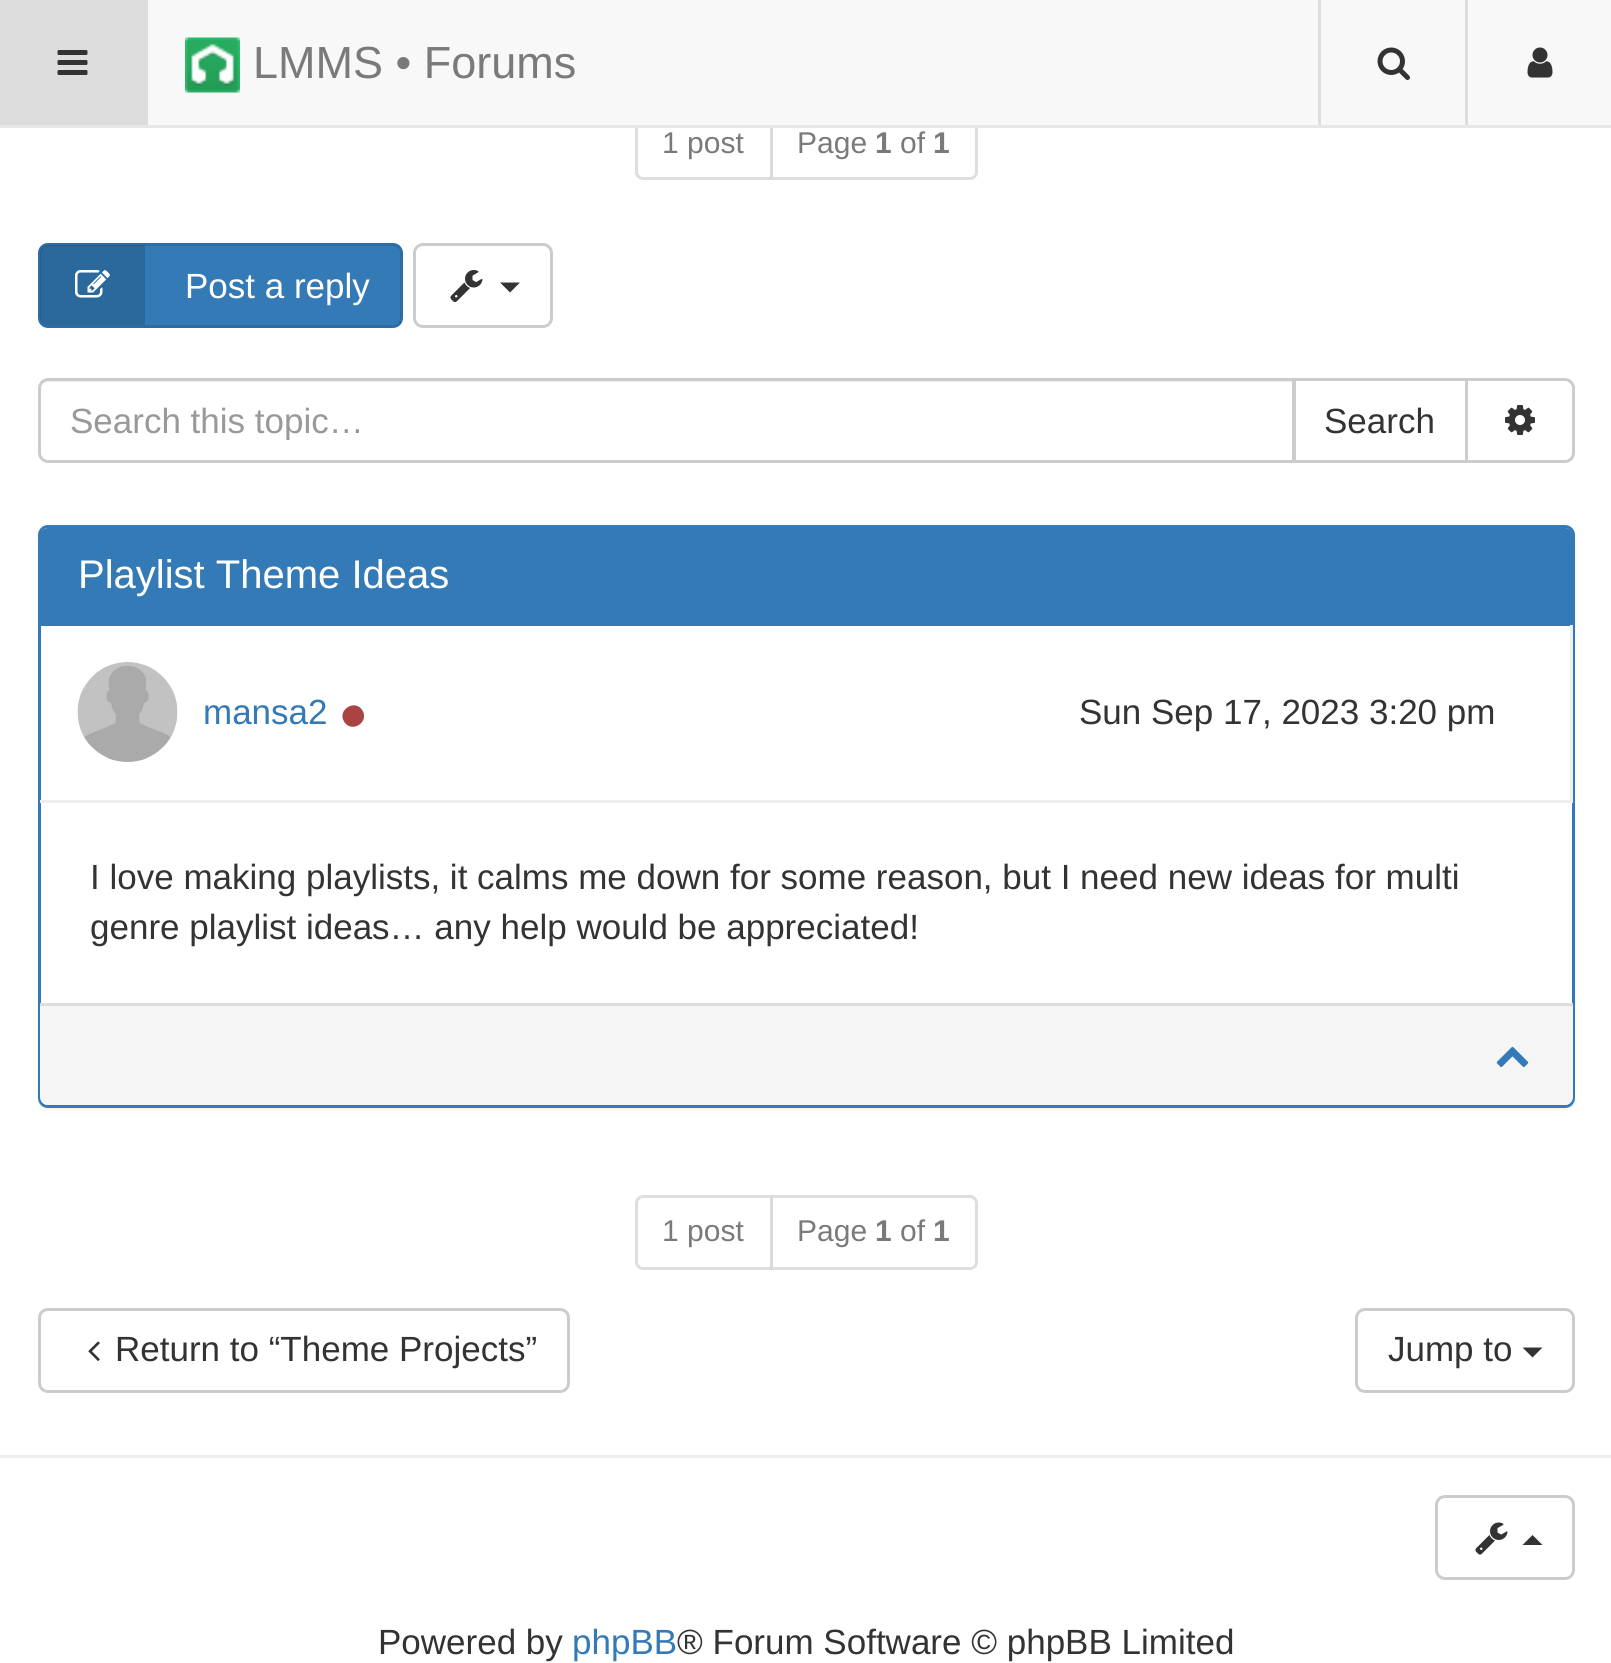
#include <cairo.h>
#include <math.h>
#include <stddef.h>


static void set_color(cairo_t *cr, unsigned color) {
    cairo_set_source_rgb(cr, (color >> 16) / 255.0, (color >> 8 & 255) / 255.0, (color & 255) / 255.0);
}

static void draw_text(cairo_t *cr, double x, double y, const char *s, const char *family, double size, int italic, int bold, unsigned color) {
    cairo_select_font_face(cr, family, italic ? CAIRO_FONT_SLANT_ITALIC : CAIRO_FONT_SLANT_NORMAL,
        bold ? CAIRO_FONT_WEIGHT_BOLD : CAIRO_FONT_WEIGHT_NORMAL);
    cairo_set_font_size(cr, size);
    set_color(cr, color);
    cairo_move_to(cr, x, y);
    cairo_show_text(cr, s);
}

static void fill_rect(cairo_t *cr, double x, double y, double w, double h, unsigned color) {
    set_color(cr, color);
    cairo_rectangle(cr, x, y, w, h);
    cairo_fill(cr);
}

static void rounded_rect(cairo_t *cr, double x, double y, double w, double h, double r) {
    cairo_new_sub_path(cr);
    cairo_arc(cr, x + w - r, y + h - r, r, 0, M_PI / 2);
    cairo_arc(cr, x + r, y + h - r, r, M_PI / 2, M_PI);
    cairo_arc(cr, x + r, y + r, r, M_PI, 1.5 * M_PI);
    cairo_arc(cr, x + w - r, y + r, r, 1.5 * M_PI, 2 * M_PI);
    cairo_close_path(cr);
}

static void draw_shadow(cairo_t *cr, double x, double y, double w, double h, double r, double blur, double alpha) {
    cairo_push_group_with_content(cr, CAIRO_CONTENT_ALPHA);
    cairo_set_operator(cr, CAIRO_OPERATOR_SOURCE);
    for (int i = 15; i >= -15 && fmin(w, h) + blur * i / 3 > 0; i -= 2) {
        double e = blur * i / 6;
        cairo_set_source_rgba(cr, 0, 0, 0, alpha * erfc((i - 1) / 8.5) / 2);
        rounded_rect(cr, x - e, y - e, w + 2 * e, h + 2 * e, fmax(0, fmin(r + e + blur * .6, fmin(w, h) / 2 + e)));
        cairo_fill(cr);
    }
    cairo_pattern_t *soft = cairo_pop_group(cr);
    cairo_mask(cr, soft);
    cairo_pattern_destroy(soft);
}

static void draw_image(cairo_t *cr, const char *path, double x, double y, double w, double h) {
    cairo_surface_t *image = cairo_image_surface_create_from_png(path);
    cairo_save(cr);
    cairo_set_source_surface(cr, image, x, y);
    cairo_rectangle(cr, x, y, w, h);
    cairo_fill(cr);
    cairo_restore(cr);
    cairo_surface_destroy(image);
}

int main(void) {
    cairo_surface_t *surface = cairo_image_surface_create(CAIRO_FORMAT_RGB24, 1611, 1663);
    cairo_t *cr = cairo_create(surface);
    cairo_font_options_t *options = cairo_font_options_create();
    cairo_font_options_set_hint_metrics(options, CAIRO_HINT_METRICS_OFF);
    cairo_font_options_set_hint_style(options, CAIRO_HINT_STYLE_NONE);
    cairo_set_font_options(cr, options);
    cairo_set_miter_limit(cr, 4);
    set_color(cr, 0xFFFFFF);
    cairo_paint(cr);
    cairo_new_path(cr);
    cairo_move_to(cr, 643, 106.5);
    cairo_line_to(cr, 771.5, 106.5);
    cairo_line_to(cr, 771.5, 178.5);
    cairo_line_to(cr, 643, 178.5);
    cairo_curve_to(cr, 639.5, 178.5, 636.5, 175.5, 636.5, 172);
    cairo_line_to(cr, 636.5, 113);
    cairo_curve_to(cr, 636.5, 109.5, 639.5, 106.5, 643, 106.5);
    cairo_close_path(cr);
    set_color(cr, 0xDEDEDE);
    cairo_set_line_width(cr, 3);
    cairo_stroke(cr);
    cairo_set_source_rgba(cr, 1, 1, 1, 0.65);
    cairo_new_path(cr);
    cairo_move_to(cr, 770, 105);
    cairo_line_to(cr, 970, 105);
    cairo_curve_to(cr, 974.5, 105, 978, 108.5, 978, 113);
    cairo_line_to(cr, 978, 172);
    cairo_curve_to(cr, 978, 176.5, 974.5, 180, 970, 180);
    cairo_line_to(cr, 770, 180);
    cairo_close_path(cr);
    cairo_fill(cr);
    cairo_new_path(cr);
    cairo_move_to(cr, 771.5, 106.5);
    cairo_line_to(cr, 970, 106.5);
    cairo_curve_to(cr, 973.5, 106.5, 976.5, 109.5, 976.5, 113);
    cairo_line_to(cr, 976.5, 172);
    cairo_curve_to(cr, 976.5, 175.5, 973.5, 178.5, 970, 178.5);
    cairo_line_to(cr, 771.5, 178.5);
    cairo_close_path(cr);
    cairo_set_source_rgba(cr, 0.8, 0.8, 0.8, 0.65);
    cairo_stroke(cr);
    fill_rect(cr, 148, 0, 1463, 125, 0xF8F8F8);
    fill_rect(cr, 0, 125, 1611, 3, 0xE7E7E7);
    fill_rect(cr, 0, 0, 148, 125, 0xDDDDDD);
    draw_image(cr, "assets/img1.png", 57, 50, 31, 25);
    draw_image(cr, "assets/img2.png", 185, 37, 55, 56);
    draw_text(cr, 253, 78, "LMMS • Forums", "Liberation Sans", 45, 0, 0, 0x7A7A7A);
    fill_rect(cr, 1318, 0, 3, 125, 0xDDDDDD);
    draw_image(cr, "assets/img3.png", 1377, 47, 33, 33);
    fill_rect(cr, 1465, 0, 3, 125, 0xDDDDDD);
    draw_image(cr, "assets/img4.png", 1527, 47, 26, 31);
    draw_text(cr, 662, 153, "1 post", "Liberation Sans", 30, 0, 0, 0x7A7A7A);
    draw_text(cr, 797, 153, "Page", "Liberation Sans", 30, 0, 0, 0x7A7A7A);
    draw_text(cr, 875, 153, "1", "Liberation Sans", 30, 0, 1, 0x7A7A7A);
    draw_text(cr, 900, 153, "of", "Liberation Sans", 30, 0, 0, 0x7A7A7A);
    draw_text(cr, 933, 153, "1", "Liberation Sans", 30, 0, 1, 0x7A7A7A);
    set_color(cr, 0x337AB7);
    rounded_rect(cr, 39.5, 244.5, 362, 82, 8.5);
    cairo_fill_preserve(cr);
    set_color(cr, 0x2E6DA4);
    cairo_stroke(cr);
    cairo_set_source_rgba(cr, 0, 0, 0, 0.15);
    cairo_new_path(cr);
    cairo_move_to(cr, 48, 245);
    cairo_line_to(cr, 145, 245);
    cairo_line_to(cr, 145, 325);
    cairo_line_to(cr, 48, 325);
    cairo_curve_to(cr, 43.5, 325, 40, 321.5, 40, 317);
    cairo_line_to(cr, 40, 253);
    cairo_curve_to(cr, 40, 248.5, 43.5, 245, 48, 245);
    cairo_close_path(cr);
    cairo_fill(cr);
    draw_image(cr, "assets/img5.png", 75, 270, 35, 28);
    draw_text(cr, 185, 298, "Post a reply", "Liberation Sans", 35, 0, 0, 0xFFFFFF);
    rounded_rect(cr, 414.5, 244.5, 137, 82, 8.5);
    set_color(cr, 0xCCCCCC);
    cairo_stroke(cr);
    draw_image(cr, "assets/img6.png", 450, 270, 33, 32);
    set_color(cr, 0x333333);
    cairo_new_path(cr);
    cairo_move_to(cr, 500, 282.5);
    cairo_line_to(cr, 520, 282.5);
    cairo_line_to(cr, 510, 292.5);
    cairo_close_path(cr);
    cairo_fill(cr);
    set_color(cr, 0xECECEC);
    cairo_new_path(cr);
    cairo_move_to(cr, 48, 382);
    cairo_line_to(cr, 1292, 382);
    cairo_line_to(cr, 1292, 460);
    cairo_line_to(cr, 1293, 460);
    cairo_line_to(cr, 1293, 380);
    cairo_line_to(cr, 48, 380);
    cairo_curve_to(cr, 42, 380, 40, 385, 40, 390);
    cairo_curve_to(cr, 40, 386, 43, 382, 48, 382);
    cairo_close_path(cr);
    cairo_fill(cr);
    cairo_new_path(cr);
    cairo_move_to(cr, 48, 379.5);
    cairo_line_to(cr, 1293.5, 379.5);
    cairo_line_to(cr, 1293.5, 461.5);
    cairo_line_to(cr, 48, 461.5);
    cairo_curve_to(cr, 43.5, 461.5, 39.5, 457.5, 39.5, 453);
    cairo_line_to(cr, 39.5, 388);
    cairo_curve_to(cr, 39.5, 383.5, 43.5, 379.5, 48, 379.5);
    cairo_close_path(cr);
    set_color(cr, 0xCCCCCC);
    cairo_stroke(cr);
    cairo_save(cr);
    cairo_rectangle(cr, 70, 400, 1183, 40);
    cairo_clip(cr);
    draw_text(cr, 70, 433, "Search this topic…", "Liberation Sans", 35, 0, 0, 0x999999);
    cairo_restore(cr);
    cairo_rectangle(cr, 1294.5, 379.5, 172, 82);
    cairo_stroke(cr);
    draw_text(cr, 1324, 433, "Search", "Liberation Sans", 35, 0, 0, 0x333333);
    set_color(cr, 0xFFFFFF);
    cairo_new_path(cr);
    cairo_move_to(cr, 1466.5, 379.5);
    cairo_line_to(cr, 1565, 379.5);
    cairo_curve_to(cr, 1569.5, 379.5, 1573.5, 383.5, 1573.5, 388);
    cairo_line_to(cr, 1573.5, 453);
    cairo_curve_to(cr, 1573.5, 457.5, 1569.5, 461.5, 1565, 461.5);
    cairo_line_to(cr, 1466.5, 461.5);
    cairo_close_path(cr);
    cairo_fill_preserve(cr);
    set_color(cr, 0xCCCCCC);
    cairo_stroke(cr);
    draw_image(cr, "assets/img7.png", 1505, 405, 30, 30);
    set_color(cr, 0x000000);
    draw_shadow(cr, 38, 528, 1537, 582, 10, 1, 0.05);
    set_color(cr, 0xFFFFFF);
    rounded_rect(cr, 39.5, 526.5, 1534, 580, 8.5);
    cairo_fill_preserve(cr);
    set_color(cr, 0x337AB7);
    cairo_stroke(cr);
    cairo_new_path(cr);
    cairo_move_to(cr, 48, 528);
    cairo_line_to(cr, 1565, 528);
    cairo_curve_to(cr, 1569.5, 528, 1573, 531.5, 1573, 536);
    cairo_line_to(cr, 1573, 625);
    cairo_line_to(cr, 40, 625);
    cairo_line_to(cr, 40, 536);
    cairo_curve_to(cr, 40, 531.5, 43.5, 528, 48, 528);
    cairo_close_path(cr);
    cairo_fill(cr);
    fill_rect(cr, 40, 625, 1533, 1, 0x337AB7);
    draw_text(cr, 78, 588, "Playlist Theme Ideas", "Liberation Sans", 40, 0, 0, 0xFFFFFF);
    fill_rect(cr, 1570, 625, 3, 178, 0xEEEEEE);
    fill_rect(cr, 40, 800, 1533, 3, 0xEEEEEE);
    draw_image(cr, "assets/img8.png", 77, 662, 101, 100);
    draw_text(cr, 203, 724, "mansa2", "Liberation Sans", 35, 0, 0, 0x337AB7);
    set_color(cr, 0xA94442);
    cairo_new_path(cr);
    cairo_move_to(cr, 362.5, 710.5);
    cairo_curve_to(cr, 369.5, 723, 351, 733.5, 344, 721.5);
    cairo_curve_to(cr, 337, 709.5, 355.5, 698.5, 362.5, 710.5);
    cairo_close_path(cr);
    cairo_fill(cr);
    draw_text(cr, 1079, 724, "Sun Sep 17, 2023 3:20 pm", "Liberation Sans", 35, 0, 0, 0x333333);
    draw_text(cr, 90, 889, "I love making playlists, it calms me down for some reason, but I need new ideas for multi", "Liberation Sans", 35, 0, 0, 0x333333);
    draw_text(cr, 90, 939, "genre playlist ideas… any help would be appreciated!", "Liberation Sans", 35, 0, 0, 0x333333);
    set_color(cr, 0xF5F5F5);
    cairo_new_path(cr);
    cairo_move_to(cr, 40, 1003);
    cairo_line_to(cr, 1573, 1003);
    cairo_line_to(cr, 1573, 1097);
    cairo_curve_to(cr, 1573, 1101.5, 1569.5, 1105, 1565, 1105);
    cairo_line_to(cr, 48, 1105);
    cairo_curve_to(cr, 43.5, 1105, 40, 1101.5, 40, 1097);
    cairo_close_path(cr);
    cairo_fill(cr);
    fill_rect(cr, 40, 1003, 1533, 3, 0xDDDDDD);
    draw_image(cr, "assets/img9.png", 1496, 1046, 33, 22);
    cairo_new_path(cr);
    cairo_move_to(cr, 643, 1196.5);
    cairo_line_to(cr, 771.5, 1196.5);
    cairo_line_to(cr, 771.5, 1268.5);
    cairo_line_to(cr, 643, 1268.5);
    cairo_curve_to(cr, 639.5, 1268.5, 636.5, 1265.5, 636.5, 1262);
    cairo_line_to(cr, 636.5, 1203);
    cairo_curve_to(cr, 636.5, 1199.5, 639.5, 1196.5, 643, 1196.5);
    cairo_close_path(cr);
    set_color(cr, 0xDEDEDE);
    cairo_stroke(cr);
    draw_text(cr, 662, 1241, "1 post", "Liberation Sans", 30, 0, 0, 0x7A7A7A);
    cairo_set_source_rgba(cr, 1, 1, 1, 0.65);
    cairo_new_path(cr);
    cairo_move_to(cr, 770, 1195);
    cairo_line_to(cr, 970, 1195);
    cairo_curve_to(cr, 974.5, 1195, 978, 1198.5, 978, 1203);
    cairo_line_to(cr, 978, 1262);
    cairo_curve_to(cr, 978, 1266.5, 974.5, 1270, 970, 1270);
    cairo_line_to(cr, 770, 1270);
    cairo_close_path(cr);
    cairo_fill(cr);
    cairo_new_path(cr);
    cairo_move_to(cr, 771.5, 1196.5);
    cairo_line_to(cr, 970, 1196.5);
    cairo_curve_to(cr, 973.5, 1196.5, 976.5, 1199.5, 976.5, 1203);
    cairo_line_to(cr, 976.5, 1262);
    cairo_curve_to(cr, 976.5, 1265.5, 973.5, 1268.5, 970, 1268.5);
    cairo_line_to(cr, 771.5, 1268.5);
    cairo_close_path(cr);
    cairo_set_source_rgba(cr, 0.8, 0.8, 0.8, 0.65);
    cairo_stroke(cr);
    draw_text(cr, 797, 1241, "Page", "Liberation Sans", 30, 0, 0, 0x7A7A7A);
    draw_text(cr, 875, 1241, "1", "Liberation Sans", 30, 0, 1, 0x7A7A7A);
    draw_text(cr, 900, 1241, "of", "Liberation Sans", 30, 0, 0, 0x7A7A7A);
    draw_text(cr, 933, 1241, "1", "Liberation Sans", 30, 0, 1, 0x7A7A7A);
    rounded_rect(cr, 39.5, 1309.5, 529, 82, 8.5);
    set_color(cr, 0xCCCCCC);
    cairo_stroke(cr);
    draw_image(cr, "assets/img10.png", 88, 1341, 12, 20);
    draw_text(cr, 115, 1361, "Return to “Theme Projects”", "Liberation Sans", 35, 0, 0, 0x333333);
    rounded_rect(cr, 1356.5, 1309.5, 217, 82, 8.5);
    set_color(cr, 0xCCCCCC);
    cairo_stroke(cr);
    draw_text(cr, 1388, 1361, "Jump to", "Liberation Sans", 35, 0, 0, 0x333333);
    cairo_new_path(cr);
    cairo_move_to(cr, 1522.5, 1347.5);
    cairo_line_to(cr, 1542.5, 1347.5);
    cairo_line_to(cr, 1532.5, 1357.5);
    cairo_close_path(cr);
    cairo_fill(cr);
    fill_rect(cr, 0, 1455, 1611, 3, 0xEEEEEE);
    rounded_rect(cr, 1436.5, 1496.5, 137, 82, 8.5);
    set_color(cr, 0xCCCCCC);
    cairo_stroke(cr);
    draw_image(cr, "assets/img11.png", 1475, 1522, 33, 33);
    set_color(cr, 0x333333);
    cairo_new_path(cr);
    cairo_move_to(cr, 1542.5, 1545);
    cairo_line_to(cr, 1522.5, 1545);
    cairo_line_to(cr, 1532.5, 1535);
    cairo_close_path(cr);
    cairo_fill(cr);
    draw_text(cr, 378, 1654, "Powered by", "Liberation Sans", 35, 0, 0, 0x333333);
    draw_text(cr, 572, 1654, "phpBB", "Liberation Sans", 35, 0, 0, 0x337AB7);
    draw_text(cr, 677, 1654, "® Forum Software © phpBB Limited", "Liberation Sans", 35, 0, 0, 0x333333);
    cairo_surface_write_to_png(surface, "output.png");
    cairo_font_options_destroy(options);
    cairo_destroy(cr);
    cairo_surface_destroy(surface);
    return 0;
}
